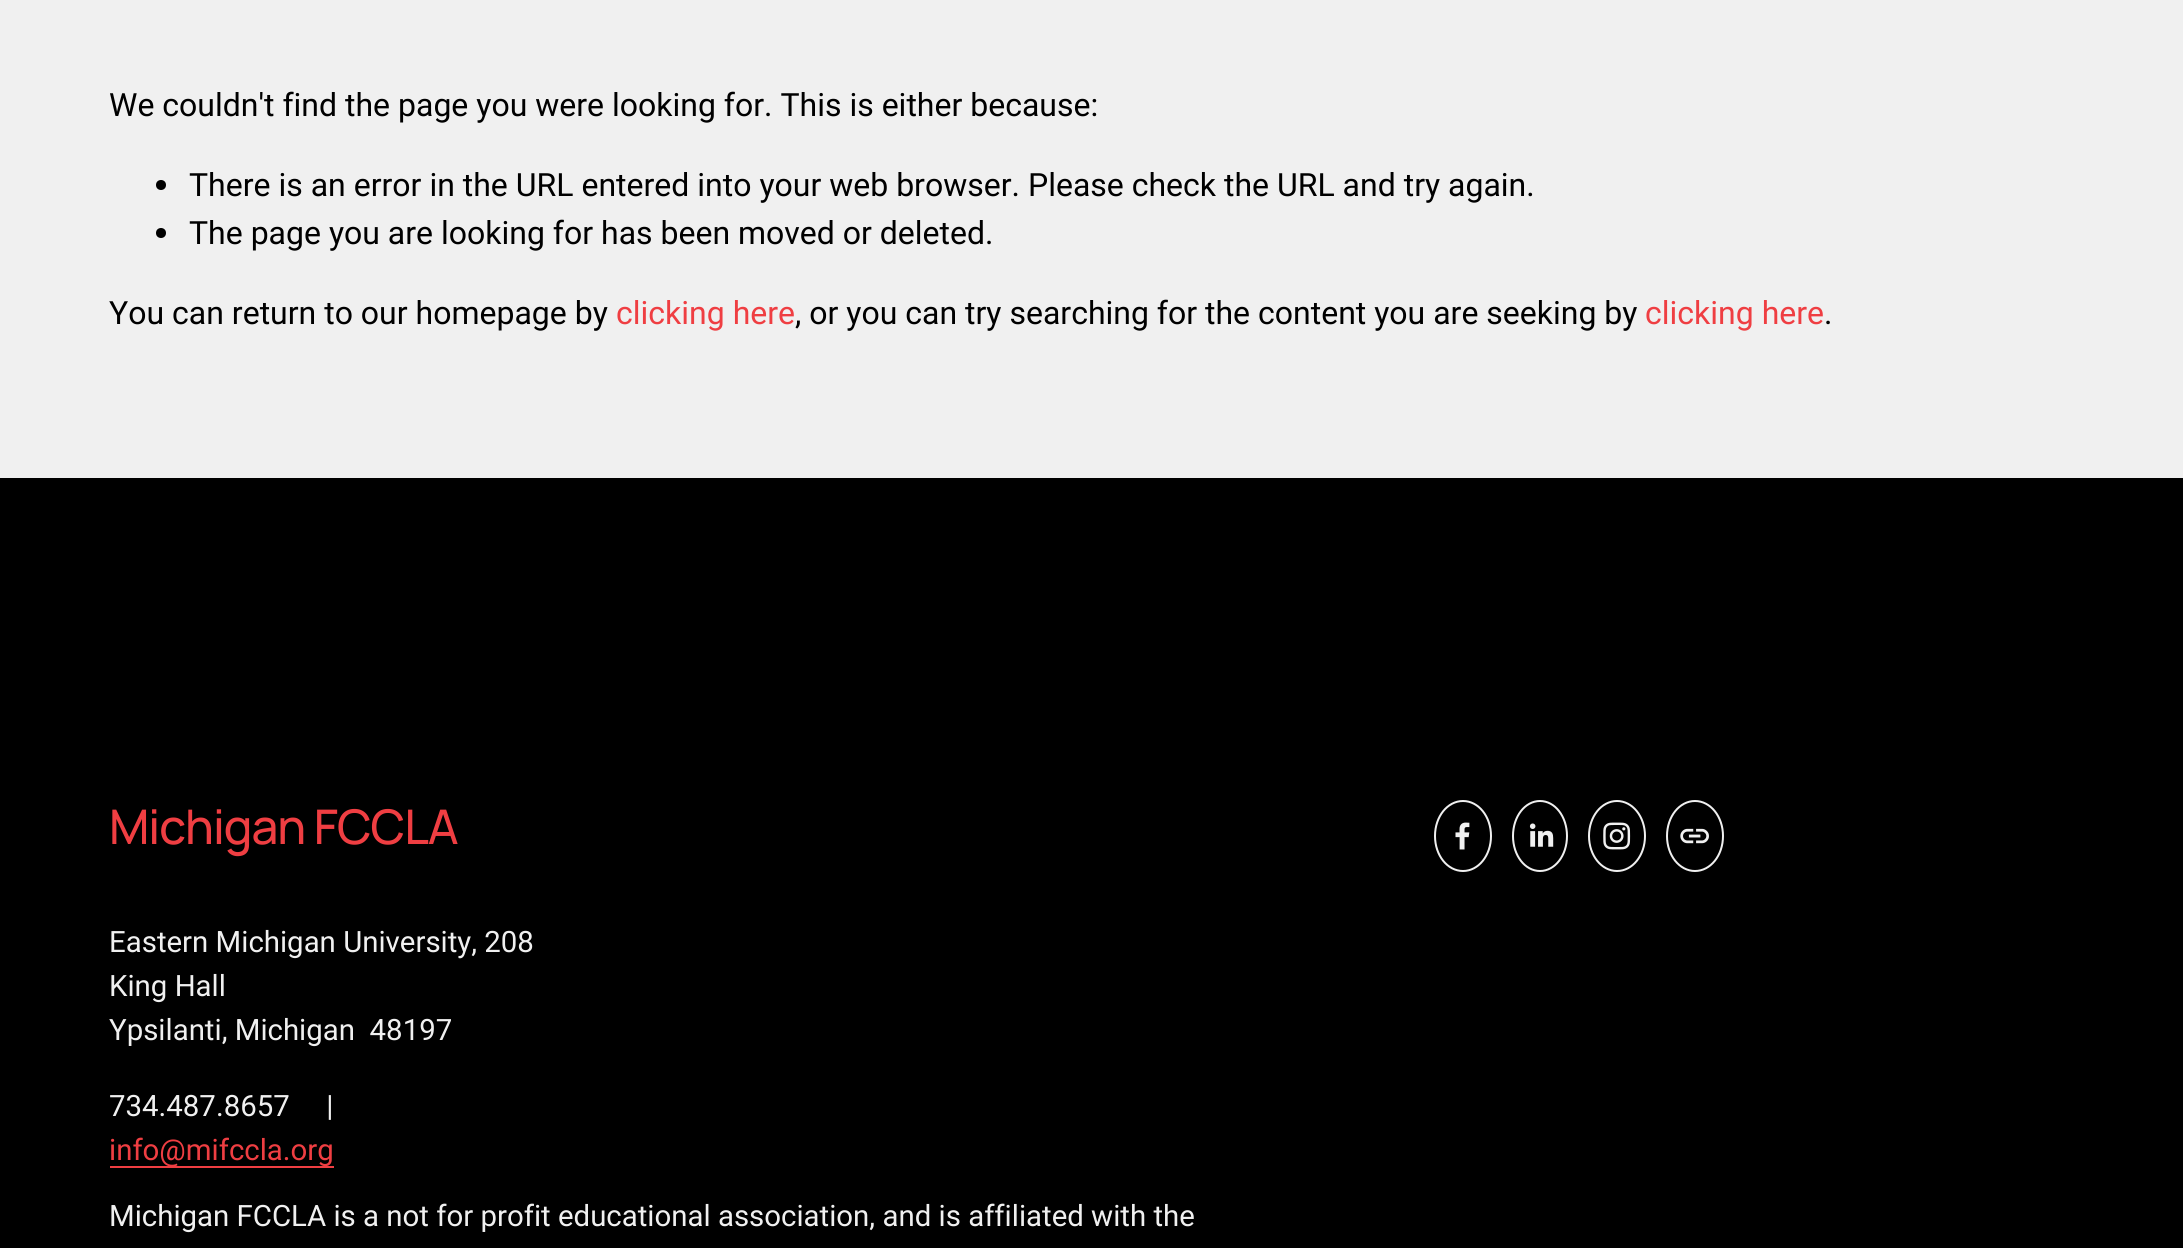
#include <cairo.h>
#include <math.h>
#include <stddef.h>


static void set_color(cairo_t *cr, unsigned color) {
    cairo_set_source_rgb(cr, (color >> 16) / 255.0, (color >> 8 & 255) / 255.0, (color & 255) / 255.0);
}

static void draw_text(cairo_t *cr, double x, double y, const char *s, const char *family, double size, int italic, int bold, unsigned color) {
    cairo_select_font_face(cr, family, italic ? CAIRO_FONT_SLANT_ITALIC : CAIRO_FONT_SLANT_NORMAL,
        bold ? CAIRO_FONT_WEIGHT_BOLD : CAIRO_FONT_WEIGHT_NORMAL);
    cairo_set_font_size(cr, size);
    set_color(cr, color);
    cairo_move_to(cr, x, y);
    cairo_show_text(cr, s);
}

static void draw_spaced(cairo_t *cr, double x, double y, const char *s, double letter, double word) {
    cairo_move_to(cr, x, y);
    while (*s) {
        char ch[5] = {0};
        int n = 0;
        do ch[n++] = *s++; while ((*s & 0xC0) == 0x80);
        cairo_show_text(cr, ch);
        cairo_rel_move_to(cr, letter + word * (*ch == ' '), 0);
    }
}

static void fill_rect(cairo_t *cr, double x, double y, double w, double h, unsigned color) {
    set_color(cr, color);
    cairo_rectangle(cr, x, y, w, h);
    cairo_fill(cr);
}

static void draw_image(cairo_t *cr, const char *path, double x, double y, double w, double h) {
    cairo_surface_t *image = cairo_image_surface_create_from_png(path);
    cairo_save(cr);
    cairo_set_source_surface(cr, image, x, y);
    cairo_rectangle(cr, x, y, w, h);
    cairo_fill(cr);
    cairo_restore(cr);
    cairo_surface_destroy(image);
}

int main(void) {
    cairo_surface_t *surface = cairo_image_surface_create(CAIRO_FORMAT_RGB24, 2183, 1248);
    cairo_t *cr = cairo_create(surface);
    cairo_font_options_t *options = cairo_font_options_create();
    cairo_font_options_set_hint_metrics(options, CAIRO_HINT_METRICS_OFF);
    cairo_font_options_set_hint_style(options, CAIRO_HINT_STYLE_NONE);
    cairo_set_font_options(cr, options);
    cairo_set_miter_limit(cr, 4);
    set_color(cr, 0xF0F0F0);
    cairo_paint(cr);
    draw_text(cr, 109, 116, "We couldn't find the page you were looking for. This is either because:", "Roboto", 32, 0, 0, 0x000000);
    cairo_new_path(cr);
    cairo_arc(cr, 161, 185, 5, 0, 2 * M_PI);
    cairo_fill(cr);
    draw_text(cr, 189, 196, "There is an error in the URL entered into your web browser. Please check the URL and try again.", "Roboto", 32, 0, 0, 0x000000);
    cairo_new_path(cr);
    cairo_arc(cr, 161, 233, 5, 0, 2 * M_PI);
    cairo_fill(cr);
    draw_text(cr, 189, 244, "The page you are looking for has been moved or deleted.", "Roboto", 32, 0, 0, 0x000000);
    draw_text(cr, 109, 324, "You can return to our homepage by", "Roboto", 32, 0, 0, 0x000000);
    draw_text(cr, 616, 324, "clicking here", "Roboto", 32, 0, 0, 0xEF3E42);
    draw_text(cr, 795, 324, ", or you can try searching for the content you are seeking by", "Roboto", 32, 0, 0, 0x000000);
    draw_text(cr, 1645, 324, "clicking here", "Roboto", 32, 0, 0, 0xEF3E42);
    draw_text(cr, 1824, 324, ".", "Roboto", 32, 0, 0, 0x000000);
    fill_rect(cr, 0, 478, 2183, 770, 0x000000);
    cairo_select_font_face(cr, "Manrope Medium", CAIRO_FONT_SLANT_NORMAL, CAIRO_FONT_WEIGHT_NORMAL);
    cairo_set_font_size(cr, 47.75);
    set_color(cr, 0xEF3E42);
    draw_spaced(cr, 109, 844, "Michigan FCCLA", -1, 0);
    draw_text(cr, 109, 952, "Eastern Michigan University, 208", "Roboto", 29.4, 0, 0, 0xF0F0F0);
    draw_text(cr, 109, 996, "King Hall", "Roboto", 29.4, 0, 0, 0xF0F0F0);
    draw_text(cr, 109, 1040, "Ypsilanti, Michigan  48197", "Roboto", 29.4, 0, 0, 0xF0F0F0);
    draw_text(cr, 109, 1116, "734.487.8657     |", "Roboto", 29.4, 0, 0, 0xF0F0F0);
    fill_rect(cr, 110, 1166, 224, 2, 0xEF3E42);
    draw_text(cr, 109, 1160, "info@mifccla.org", "Roboto", 29.4, 0, 0, 0xEF3E42);
    cairo_new_path(cr);
    cairo_move_to(cr, 1463, 801);
    cairo_curve_to(cr, 1478.5, 801, 1491, 816.5, 1491, 836);
    cairo_curve_to(cr, 1491, 855.5, 1478.5, 871, 1463, 871);
    cairo_curve_to(cr, 1447.5, 871, 1435, 855.5, 1435, 836);
    cairo_curve_to(cr, 1435, 816.5, 1447.5, 801, 1463, 801);
    cairo_close_path(cr);
    set_color(cr, 0xF0F0F0);
    cairo_stroke(cr);
    draw_image(cr, "assets/img1.png", 1455, 822, 15, 28);
    cairo_new_path(cr);
    cairo_move_to(cr, 1540, 801);
    cairo_curve_to(cr, 1555, 801, 1567, 816.5, 1567, 836);
    cairo_curve_to(cr, 1567, 855.5, 1555, 871, 1540, 871);
    cairo_curve_to(cr, 1525, 871, 1513, 855.5, 1513, 836);
    cairo_curve_to(cr, 1513, 816.5, 1525, 801, 1540, 801);
    cairo_close_path(cr);
    cairo_stroke(cr);
    draw_image(cr, "assets/img2.png", 1529, 823, 25, 24);
    cairo_new_path(cr);
    cairo_move_to(cr, 1617, 801);
    cairo_curve_to(cr, 1632.5, 801, 1645, 816.5, 1645, 836);
    cairo_curve_to(cr, 1645, 855.5, 1632.5, 871, 1617, 871);
    cairo_curve_to(cr, 1601.5, 871, 1589, 855.5, 1589, 836);
    cairo_curve_to(cr, 1589, 816.5, 1601.5, 801, 1617, 801);
    cairo_close_path(cr);
    cairo_stroke(cr);
    draw_image(cr, "assets/img3.png", 1603, 822, 28, 28);
    cairo_new_path(cr);
    cairo_move_to(cr, 1695, 801);
    cairo_curve_to(cr, 1710.5, 801, 1723, 816.5, 1723, 836);
    cairo_curve_to(cr, 1723, 855.5, 1710.5, 871, 1695, 871);
    cairo_curve_to(cr, 1679.5, 871, 1667, 855.5, 1667, 836);
    cairo_curve_to(cr, 1667, 816.5, 1679.5, 801, 1695, 801);
    cairo_close_path(cr);
    cairo_stroke(cr);
    draw_image(cr, "assets/img4.png", 1680, 828, 29, 16);
    draw_text(cr, 109, 1226, "Michigan FCCLA is a not for profit educational association, and is affiliated with the", "Roboto", 29.4, 0, 0, 0xF0F0F0);
    cairo_surface_write_to_png(surface, "output.png");
    cairo_font_options_destroy(options);
    cairo_destroy(cr);
    cairo_surface_destroy(surface);
    return 0;
}
